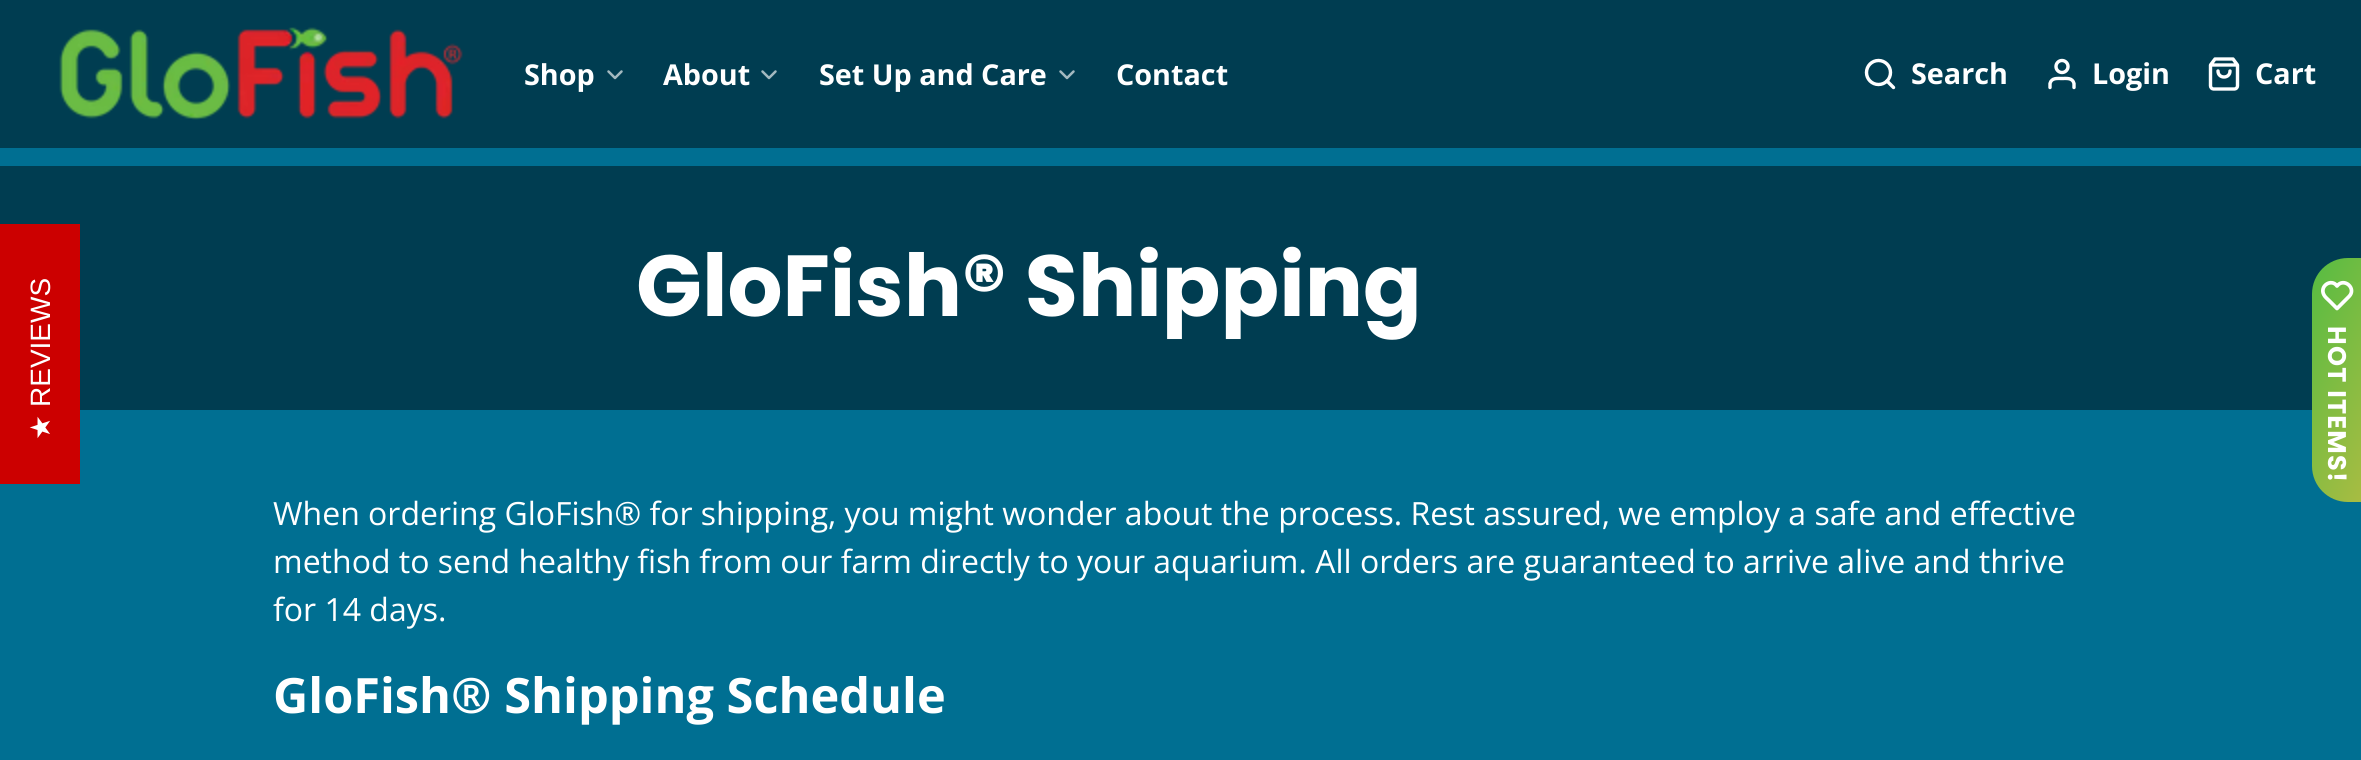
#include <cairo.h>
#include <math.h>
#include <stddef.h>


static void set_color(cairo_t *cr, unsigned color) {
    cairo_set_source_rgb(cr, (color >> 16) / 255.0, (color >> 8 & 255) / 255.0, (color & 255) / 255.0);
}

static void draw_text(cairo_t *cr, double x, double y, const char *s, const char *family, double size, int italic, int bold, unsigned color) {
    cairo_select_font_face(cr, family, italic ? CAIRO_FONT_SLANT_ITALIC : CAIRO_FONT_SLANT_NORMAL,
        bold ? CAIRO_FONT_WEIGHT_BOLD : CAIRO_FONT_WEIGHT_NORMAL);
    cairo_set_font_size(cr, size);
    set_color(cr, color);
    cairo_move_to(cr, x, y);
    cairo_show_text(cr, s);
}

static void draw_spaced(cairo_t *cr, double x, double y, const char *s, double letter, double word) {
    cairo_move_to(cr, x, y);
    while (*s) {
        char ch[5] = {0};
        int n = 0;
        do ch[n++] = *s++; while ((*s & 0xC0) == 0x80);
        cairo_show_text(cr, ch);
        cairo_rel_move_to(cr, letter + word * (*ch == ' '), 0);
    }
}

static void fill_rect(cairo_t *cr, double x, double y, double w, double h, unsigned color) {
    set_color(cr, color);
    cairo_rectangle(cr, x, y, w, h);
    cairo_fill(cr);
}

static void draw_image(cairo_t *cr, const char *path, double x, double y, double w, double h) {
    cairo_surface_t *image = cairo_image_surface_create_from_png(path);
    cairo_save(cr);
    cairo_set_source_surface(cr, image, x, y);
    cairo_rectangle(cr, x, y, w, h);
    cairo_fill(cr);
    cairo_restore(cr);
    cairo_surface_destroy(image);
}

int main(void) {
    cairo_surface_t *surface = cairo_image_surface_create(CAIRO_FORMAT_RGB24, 2361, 760);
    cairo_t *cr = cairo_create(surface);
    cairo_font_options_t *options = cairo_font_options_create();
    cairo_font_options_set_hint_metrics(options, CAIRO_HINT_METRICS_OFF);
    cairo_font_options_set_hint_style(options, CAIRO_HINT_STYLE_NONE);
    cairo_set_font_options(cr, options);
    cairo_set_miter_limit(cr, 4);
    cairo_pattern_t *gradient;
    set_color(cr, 0x006F92);
    cairo_paint(cr);
    fill_rect(cr, 0, 166, 2361, 244, 0x003D51);
    fill_rect(cr, 0, 224, 80, 260, 0xCC0000);
    cairo_save(cr);
    cairo_translate(cr, 50, 407);
    cairo_rotate(cr, -90 * M_PI / 180);
    draw_text(cr, 0, 0, "REVIEWS", "Liberation Sans", 28, 0, 0, 0xFFFFFF);
    cairo_restore(cr);
    cairo_save(cr);
    cairo_translate(cr, 50, 440);
    cairo_rotate(cr, -90 * M_PI / 180);
    draw_text(cr, 0, 0, "★", "DejaVu Sans", 28, 0, 0, 0xFFFFFF);
    cairo_restore(cr);
    fill_rect(cr, 0, 0, 2361, 148, 0x003D51);
    draw_image(cr, "assets/img1.png", 59, 27, 404, 93);
    draw_text(cr, 524, 85, "Shop", "Open Sans", 28.75, 0, 1, 0xFFFFFF);
    cairo_new_path(cr);
    cairo_move_to(cr, 608.5, 71.5);
    cairo_line_to(cr, 615, 78);
    cairo_line_to(cr, 621.5, 71.5);
    set_color(cr, 0xA3B9C0);
    cairo_set_line_width(cr, 2.5);
    cairo_set_line_cap(cr, CAIRO_LINE_CAP_ROUND);
    cairo_set_line_join(cr, CAIRO_LINE_JOIN_ROUND);
    cairo_stroke(cr);
    draw_text(cr, 663, 85, "About", "Open Sans", 28.75, 0, 1, 0xFFFFFF);
    cairo_new_path(cr);
    cairo_move_to(cr, 762.5, 71.5);
    cairo_line_to(cr, 769, 78);
    cairo_line_to(cr, 775.5, 71.5);
    set_color(cr, 0xA3B9C0);
    cairo_stroke(cr);
    draw_text(cr, 819, 85, "Set Up and Care", "Open Sans", 28.75, 0, 1, 0xFFFFFF);
    cairo_new_path(cr);
    cairo_move_to(cr, 1060.5, 71.5);
    cairo_line_to(cr, 1067, 78);
    cairo_line_to(cr, 1073.5, 71.5);
    set_color(cr, 0xA3B9C0);
    cairo_stroke(cr);
    draw_text(cr, 1116, 85, "Contact", "Open Sans", 28.75, 0, 1, 0xFFFFFF);
    cairo_new_path(cr);
    cairo_arc(cr, 1878.5, 72.5, 12, 0, 2 * M_PI);
    cairo_set_line_width(cr, 3.4);
    cairo_set_line_cap(cr, CAIRO_LINE_CAP_BUTT);
    cairo_set_line_join(cr, CAIRO_LINE_JOIN_MITER);
    cairo_stroke(cr);
    cairo_new_path(cr);
    cairo_move_to(cr, 1893.5, 87.5);
    cairo_line_to(cr, 1887, 81);
    cairo_set_line_cap(cr, CAIRO_LINE_CAP_ROUND);
    cairo_set_line_join(cr, CAIRO_LINE_JOIN_ROUND);
    cairo_stroke(cr);
    draw_text(cr, 1911, 84, "Search", "Open Sans", 28.75, 0, 1, 0xFFFFFF);
    cairo_new_path(cr);
    cairo_move_to(cr, 2074, 87.5);
    cairo_line_to(cr, 2074, 83.5);
    cairo_curve_to(cr, 2072.5, 77.5, 2066.5, 78.5, 2062, 78.5);
    cairo_curve_to(cr, 2057.5, 78.5, 2051.5, 77.5, 2050, 83.5);
    cairo_line_to(cr, 2050, 87.5);
    cairo_stroke(cr);
    cairo_arc(cr, 2062, 66.5, 6, 0, 2 * M_PI);
    cairo_set_line_cap(cr, CAIRO_LINE_CAP_BUTT);
    cairo_set_line_join(cr, CAIRO_LINE_JOIN_MITER);
    cairo_stroke(cr);
    draw_text(cr, 2092, 84, "Login", "Open Sans", 28.75, 0, 1, 0xFFFFFF);
    cairo_new_path(cr);
    cairo_move_to(cr, 2215, 59);
    cairo_line_to(cr, 2210.5, 65);
    cairo_line_to(cr, 2210.5, 86);
    cairo_curve_to(cr, 2210.5, 87.5, 2212, 89, 2213.5, 89);
    cairo_line_to(cr, 2234.5, 89);
    cairo_curve_to(cr, 2236, 89, 2237.5, 87.5, 2237.5, 86);
    cairo_line_to(cr, 2237.5, 65);
    cairo_line_to(cr, 2233, 59);
    cairo_close_path(cr);
    cairo_move_to(cr, 2211.5, 65);
    cairo_line_to(cr, 2236.5, 65);
    cairo_move_to(cr, 2230, 71);
    cairo_curve_to(cr, 2230, 79, 2218, 79, 2218, 71);
    cairo_set_line_cap(cr, CAIRO_LINE_CAP_ROUND);
    cairo_set_line_join(cr, CAIRO_LINE_JOIN_ROUND);
    cairo_stroke(cr);
    draw_text(cr, 2255, 84, "Cart", "Open Sans", 28.75, 0, 1, 0xFFFFFF);
    draw_text(cr, 636, 316, "GloFish® Shipping", "Poppins", 86.5, 0, 1, 0xFFFFFF);
    draw_text(cr, 273, 525, "When ordering GloFish® for shipping, you might wonder about the process. Rest assured, we employ a safe and effective", "Open Sans", 32, 0, 0, 0xFFFFFF);
    draw_text(cr, 273, 573, "method to send healthy fish from our farm directly to your aquarium. All orders are guaranteed to arrive alive and thrive", "Open Sans", 32, 0, 0, 0xFFFFFF);
    draw_text(cr, 273, 621, "for 14 days.", "Open Sans", 32, 0, 0, 0xFFFFFF);
    draw_text(cr, 273, 713, "GloFish® Shipping Schedule", "Open Sans", 48.7, 0, 1, 0xFFFFFF);
    gradient = cairo_pattern_create_linear(2270, 349, 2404, 412);
    cairo_pattern_add_color_stop_rgba(gradient, 0, 0.337, 0.737, 0.259, 1);
    cairo_pattern_add_color_stop_rgba(gradient, 1, 0.659, 0.737, 0.259, 1);
    cairo_set_source(cr, gradient);
    cairo_pattern_destroy(gradient);
    cairo_new_path(cr);
    cairo_move_to(cr, 2348, 258);
    cairo_line_to(cr, 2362, 258);
    cairo_line_to(cr, 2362, 502);
    cairo_line_to(cr, 2348, 502);
    cairo_curve_to(cr, 2328, 502, 2312, 486, 2312, 466);
    cairo_line_to(cr, 2312, 294);
    cairo_curve_to(cr, 2312, 274, 2328, 258, 2348, 258);
    cairo_close_path(cr);
    cairo_fill(cr);
    cairo_new_path(cr);
    cairo_move_to(cr, 2349, 296.5);
    cairo_line_to(cr, 2337, 308.5);
    cairo_line_to(cr, 2329, 300.5);
    cairo_curve_to(cr, 2327.5, 299, 2325, 297, 2324, 295);
    cairo_curve_to(cr, 2319, 286, 2331.5, 278, 2337, 286);
    cairo_curve_to(cr, 2344, 277, 2357, 288.5, 2349, 296.5);
    set_color(cr, 0xFFFFFF);
    cairo_set_line_width(cr, 3.7);
    cairo_stroke(cr);
    cairo_select_font_face(cr, "Poppins", CAIRO_FONT_SLANT_NORMAL, CAIRO_FONT_WEIGHT_BOLD);
    cairo_set_font_size(cr, 25.5);
    cairo_save(cr);
    cairo_translate(cr, 2328, 326);
    cairo_rotate(cr, 90 * M_PI / 180);
    draw_spaced(cr, 0, 0, "HOT ITEMS!", 1.25, 0);
    cairo_restore(cr);
    cairo_surface_write_to_png(surface, "output.png");
    cairo_font_options_destroy(options);
    cairo_destroy(cr);
    cairo_surface_destroy(surface);
    return 0;
}
